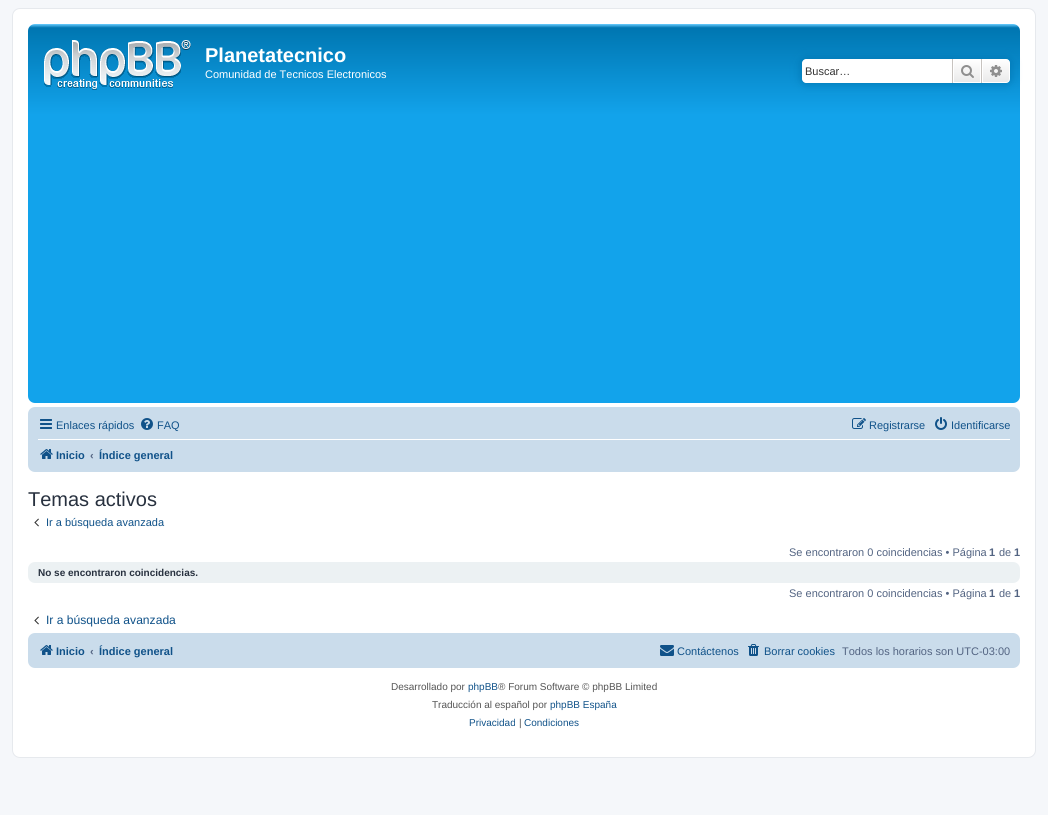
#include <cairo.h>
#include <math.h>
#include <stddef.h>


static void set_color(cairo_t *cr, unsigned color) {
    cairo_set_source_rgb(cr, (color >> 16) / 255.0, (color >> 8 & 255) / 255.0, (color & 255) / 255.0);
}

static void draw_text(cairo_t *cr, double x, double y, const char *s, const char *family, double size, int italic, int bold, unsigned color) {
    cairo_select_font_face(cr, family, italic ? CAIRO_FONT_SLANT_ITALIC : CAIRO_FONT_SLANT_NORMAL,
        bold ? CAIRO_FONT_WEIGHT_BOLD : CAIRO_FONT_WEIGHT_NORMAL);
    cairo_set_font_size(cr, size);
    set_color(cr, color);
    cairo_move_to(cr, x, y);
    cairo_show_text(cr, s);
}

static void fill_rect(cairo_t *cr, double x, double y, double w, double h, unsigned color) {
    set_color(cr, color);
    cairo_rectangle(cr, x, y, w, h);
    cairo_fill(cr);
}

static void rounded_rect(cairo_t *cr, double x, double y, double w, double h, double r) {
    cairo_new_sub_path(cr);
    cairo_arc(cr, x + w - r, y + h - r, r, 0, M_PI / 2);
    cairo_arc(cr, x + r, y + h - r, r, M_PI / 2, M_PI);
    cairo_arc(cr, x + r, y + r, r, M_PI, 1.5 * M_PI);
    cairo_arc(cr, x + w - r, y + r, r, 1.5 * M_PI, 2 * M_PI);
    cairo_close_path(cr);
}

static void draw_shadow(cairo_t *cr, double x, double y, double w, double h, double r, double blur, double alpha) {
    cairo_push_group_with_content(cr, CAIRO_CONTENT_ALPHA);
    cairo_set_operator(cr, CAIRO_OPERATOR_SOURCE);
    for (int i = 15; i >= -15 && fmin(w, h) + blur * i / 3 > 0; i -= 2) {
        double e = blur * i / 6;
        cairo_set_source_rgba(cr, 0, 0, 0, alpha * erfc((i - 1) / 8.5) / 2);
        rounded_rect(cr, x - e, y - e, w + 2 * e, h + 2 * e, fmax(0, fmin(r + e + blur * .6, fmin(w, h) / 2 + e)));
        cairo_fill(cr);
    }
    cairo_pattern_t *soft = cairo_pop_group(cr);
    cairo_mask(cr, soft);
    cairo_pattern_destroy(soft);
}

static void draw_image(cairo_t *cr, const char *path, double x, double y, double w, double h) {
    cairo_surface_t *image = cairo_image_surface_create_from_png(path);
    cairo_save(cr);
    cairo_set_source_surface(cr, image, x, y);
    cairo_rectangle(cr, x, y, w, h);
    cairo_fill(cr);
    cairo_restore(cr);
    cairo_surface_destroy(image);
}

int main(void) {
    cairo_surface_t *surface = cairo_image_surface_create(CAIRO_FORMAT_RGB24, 1048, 815);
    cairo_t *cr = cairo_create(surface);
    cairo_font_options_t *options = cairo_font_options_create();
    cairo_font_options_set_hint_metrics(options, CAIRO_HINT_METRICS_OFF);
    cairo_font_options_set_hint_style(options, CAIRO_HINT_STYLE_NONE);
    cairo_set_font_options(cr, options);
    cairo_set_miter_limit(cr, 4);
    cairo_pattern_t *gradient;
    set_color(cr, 0xF5F7FA);
    cairo_paint(cr);
    set_color(cr, 0xFFFFFF);
    rounded_rect(cr, 12.5, 8.5, 1023, 749, 7.5);
    cairo_fill_preserve(cr);
    set_color(cr, 0xE6E9ED);
    cairo_set_line_width(cr, 1);
    cairo_stroke(cr);
    gradient = cairo_pattern_create_linear(524, 24, 524, 403);
    cairo_pattern_add_color_stop_rgba(gradient, 0, 0.416, 0.808, 1, 1);
    cairo_pattern_add_color_stop_rgba(gradient, 0.01, 0, 0.463, 0.694, 1);
    cairo_pattern_add_color_stop_rgba(gradient, 0.24, 0.071, 0.639, 0.922, 1);
    cairo_pattern_add_color_stop_rgba(gradient, 1, 0.071, 0.639, 0.922, 1);
    cairo_set_source(cr, gradient);
    cairo_pattern_destroy(gradient);
    rounded_rect(cr, 28, 24, 992, 379, 7);
    cairo_fill(cr);
    draw_image(cr, "assets/img1.png", 44, 40, 147, 50);
    draw_text(cr, 205, 62, "Planetatecnico", "Liberation Sans", 20, 0, 1, 0xFFFFFF);
    draw_text(cr, 205, 78, "Comunidad de Tecnicos Electronicos", "Liberation Sans", 11, 0, 0, 0xFFFFFF);
    set_color(cr, 0x0075B0);
    draw_shadow(cr, 802, 59, 208, 24, 4, 5, 1);
    set_color(cr, 0xFFFFFF);
    cairo_new_path(cr);
    cairo_move_to(cr, 806, 59);
    cairo_line_to(cr, 952, 59);
    cairo_line_to(cr, 952, 83);
    cairo_line_to(cr, 806, 83);
    cairo_curve_to(cr, 804, 83, 802, 81, 802, 79);
    cairo_line_to(cr, 802, 63);
    cairo_curve_to(cr, 802, 61, 804, 59, 806, 59);
    cairo_close_path(cr);
    cairo_fill(cr);
    draw_text(cr, 805, 75, "Buscar…", "Liberation Sans", 11, 0, 0, 0x333333);
    gradient = cairo_pattern_create_linear(967, 59, 967, 83);
    cairo_pattern_add_color_stop_rgba(gradient, 0, 1, 1, 1, 1);
    cairo_pattern_add_color_stop_rgba(gradient, 1, 0.914, 0.914, 0.914, 1);
    cairo_set_source(cr, gradient);
    cairo_pattern_destroy(gradient);
    cairo_rectangle(cr, 954, 60, 26, 22);
    cairo_fill(cr);
    cairo_rectangle(cr, 953.5, 59.5, 27, 23);
    set_color(cr, 0xFFFFFF);
    cairo_stroke(cr);
    fill_rect(cr, 981, 59, 1, 24, 0xC7C3BF);
    fill_rect(cr, 952, 59, 1, 24, 0xC7C3BF);
    draw_image(cr, "assets/img2.png", 961, 65, 13, 13);
    gradient = cairo_pattern_create_linear(996, 59, 996, 83);
    cairo_pattern_add_color_stop_rgba(gradient, 0, 1, 1, 1, 1);
    cairo_pattern_add_color_stop_rgba(gradient, 1, 0.914, 0.914, 0.914, 1);
    cairo_set_source(cr, gradient);
    cairo_pattern_destroy(gradient);
    cairo_new_path(cr);
    cairo_move_to(cr, 982.5, 59.5);
    cairo_line_to(cr, 1006, 59.5);
    cairo_curve_to(cr, 1008, 59.5, 1009.5, 61, 1009.5, 63);
    cairo_line_to(cr, 1009.5, 79);
    cairo_curve_to(cr, 1009.5, 81, 1008, 82.5, 1006, 82.5);
    cairo_line_to(cr, 982.5, 82.5);
    cairo_close_path(cr);
    cairo_fill_preserve(cr);
    set_color(cr, 0xFFFFFF);
    cairo_stroke(cr);
    draw_image(cr, "assets/img3.png", 990, 65, 12, 12);
    set_color(cr, 0xCADCEB);
    rounded_rect(cr, 28, 407, 992, 65, 7);
    cairo_fill(cr);
    draw_image(cr, "assets/img4.png", 40, 419, 12, 10);
    draw_text(cr, 56, 429, "Enlaces rápidos", "Liberation Sans", 11, 0, 0, 0x105289);
    draw_image(cr, "assets/img5.png", 141, 418, 12, 12);
    draw_text(cr, 157, 429, "FAQ", "Liberation Sans", 11, 0, 0, 0x105289);
    draw_image(cr, "assets/img6.png", 852, 418, 14, 11);
    draw_text(cr, 869, 429, "Registrarse", "Liberation Sans", 11, 0, 0, 0x105289);
    draw_image(cr, "assets/img7.png", 935, 417, 12, 13);
    draw_text(cr, 951, 429, "Identificarse", "Liberation Sans", 11, 0, 0, 0x105289);
    fill_rect(cr, 38, 439, 972, 1, 0xFFFFFF);
    draw_image(cr, "assets/img8.png", 40, 449, 13, 10);
    draw_text(cr, 56, 459, "Inicio", "Liberation Sans", 11, 0, 1, 0x105289);
    draw_text(cr, 90, 459, "‹", "Liberation Sans", 11, 0, 1, 0x536482);
    draw_text(cr, 99, 459, "Índice general", "Liberation Sans", 11, 0, 1, 0x105289);
    draw_text(cr, 28, 506, "Temas activos", "Liberation Sans", 20, 0, 0, 0x28313F);
    draw_image(cr, "assets/img9.png", 34, 518, 5, 9);
    draw_text(cr, 46, 526, "Ir a búsqueda avanzada", "Liberation Sans", 11, 0, 0, 0x105289);
    draw_text(cr, 789, 556, "Se encontraron 0 coincidencias • Página", "Liberation Sans", 11, 0, 0, 0x536482);
    draw_text(cr, 989, 556, "1", "Liberation Sans", 11, 0, 1, 0x536482);
    draw_text(cr, 999, 556, "de", "Liberation Sans", 11, 0, 0, 0x536482);
    draw_text(cr, 1014, 556, "1", "Liberation Sans", 11, 0, 1, 0x536482);
    set_color(cr, 0xECF1F3);
    rounded_rect(cr, 28, 562, 992, 21, 7);
    cairo_fill(cr);
    draw_text(cr, 38, 576, "No se encontraron coincidencias.", "Liberation Sans", 10, 0, 1, 0x28313F);
    draw_text(cr, 789, 597, "Se encontraron 0 coincidencias • Página", "Liberation Sans", 11, 0, 0, 0x536482);
    draw_text(cr, 989, 597, "1", "Liberation Sans", 11, 0, 1, 0x536482);
    draw_text(cr, 999, 597, "de", "Liberation Sans", 11, 0, 0, 0x536482);
    draw_text(cr, 1014, 597, "1", "Liberation Sans", 11, 0, 1, 0x536482);
    draw_image(cr, "assets/img9.png", 34, 616, 5, 9);
    draw_text(cr, 46, 624, "Ir a búsqueda avanzada", "Liberation Sans", 12.1, 0, 0, 0x105289);
    set_color(cr, 0xCADCEB);
    rounded_rect(cr, 28, 633, 992, 35, 7);
    cairo_fill(cr);
    draw_image(cr, "assets/img8.png", 40, 645, 13, 10);
    draw_text(cr, 56, 655, "Inicio", "Liberation Sans", 11, 0, 1, 0x105289);
    draw_text(cr, 90, 655, "‹", "Liberation Sans", 11, 0, 1, 0x536482);
    draw_text(cr, 99, 655, "Índice general", "Liberation Sans", 11, 0, 1, 0x105289);
    draw_image(cr, "assets/img10.png", 660, 645, 14, 11);
    draw_text(cr, 677, 655, "Contáctenos", "Liberation Sans", 11, 0, 0, 0x105289);
    draw_image(cr, "assets/img11.png", 748, 644, 11, 12);
    draw_text(cr, 764, 655, "Borrar cookies", "Liberation Sans", 11, 0, 0, 0x105289);
    draw_text(cr, 842, 655, "Todos los horarios son UTC-03:00", "Liberation Sans", 11, 0, 0, 0x536482);
    draw_text(cr, 391, 690, "Desarrollado por", "Liberation Sans", 10, 0, 0, 0x555555);
    draw_text(cr, 468, 690, "phpBB", "Liberation Sans", 10, 0, 0, 0x105289);
    draw_text(cr, 498, 690, "® Forum Software © phpBB Limited", "Liberation Sans", 10, 0, 0, 0x555555);
    draw_text(cr, 432, 708, "Traducción al español por", "Liberation Sans", 10, 0, 0, 0x555555);
    draw_text(cr, 550, 708, "phpBB España", "Liberation Sans", 10, 0, 0, 0x105289);
    draw_text(cr, 469, 726, "Privacidad", "Liberation Sans", 10, 0, 0, 0x105289);
    draw_text(cr, 519, 726, "|", "Liberation Sans", 10, 0, 0, 0x555555);
    draw_text(cr, 524, 726, "Condiciones", "Liberation Sans", 10, 0, 0, 0x105289);
    cairo_surface_write_to_png(surface, "output.png");
    cairo_font_options_destroy(options);
    cairo_destroy(cr);
    cairo_surface_destroy(surface);
    return 0;
}
